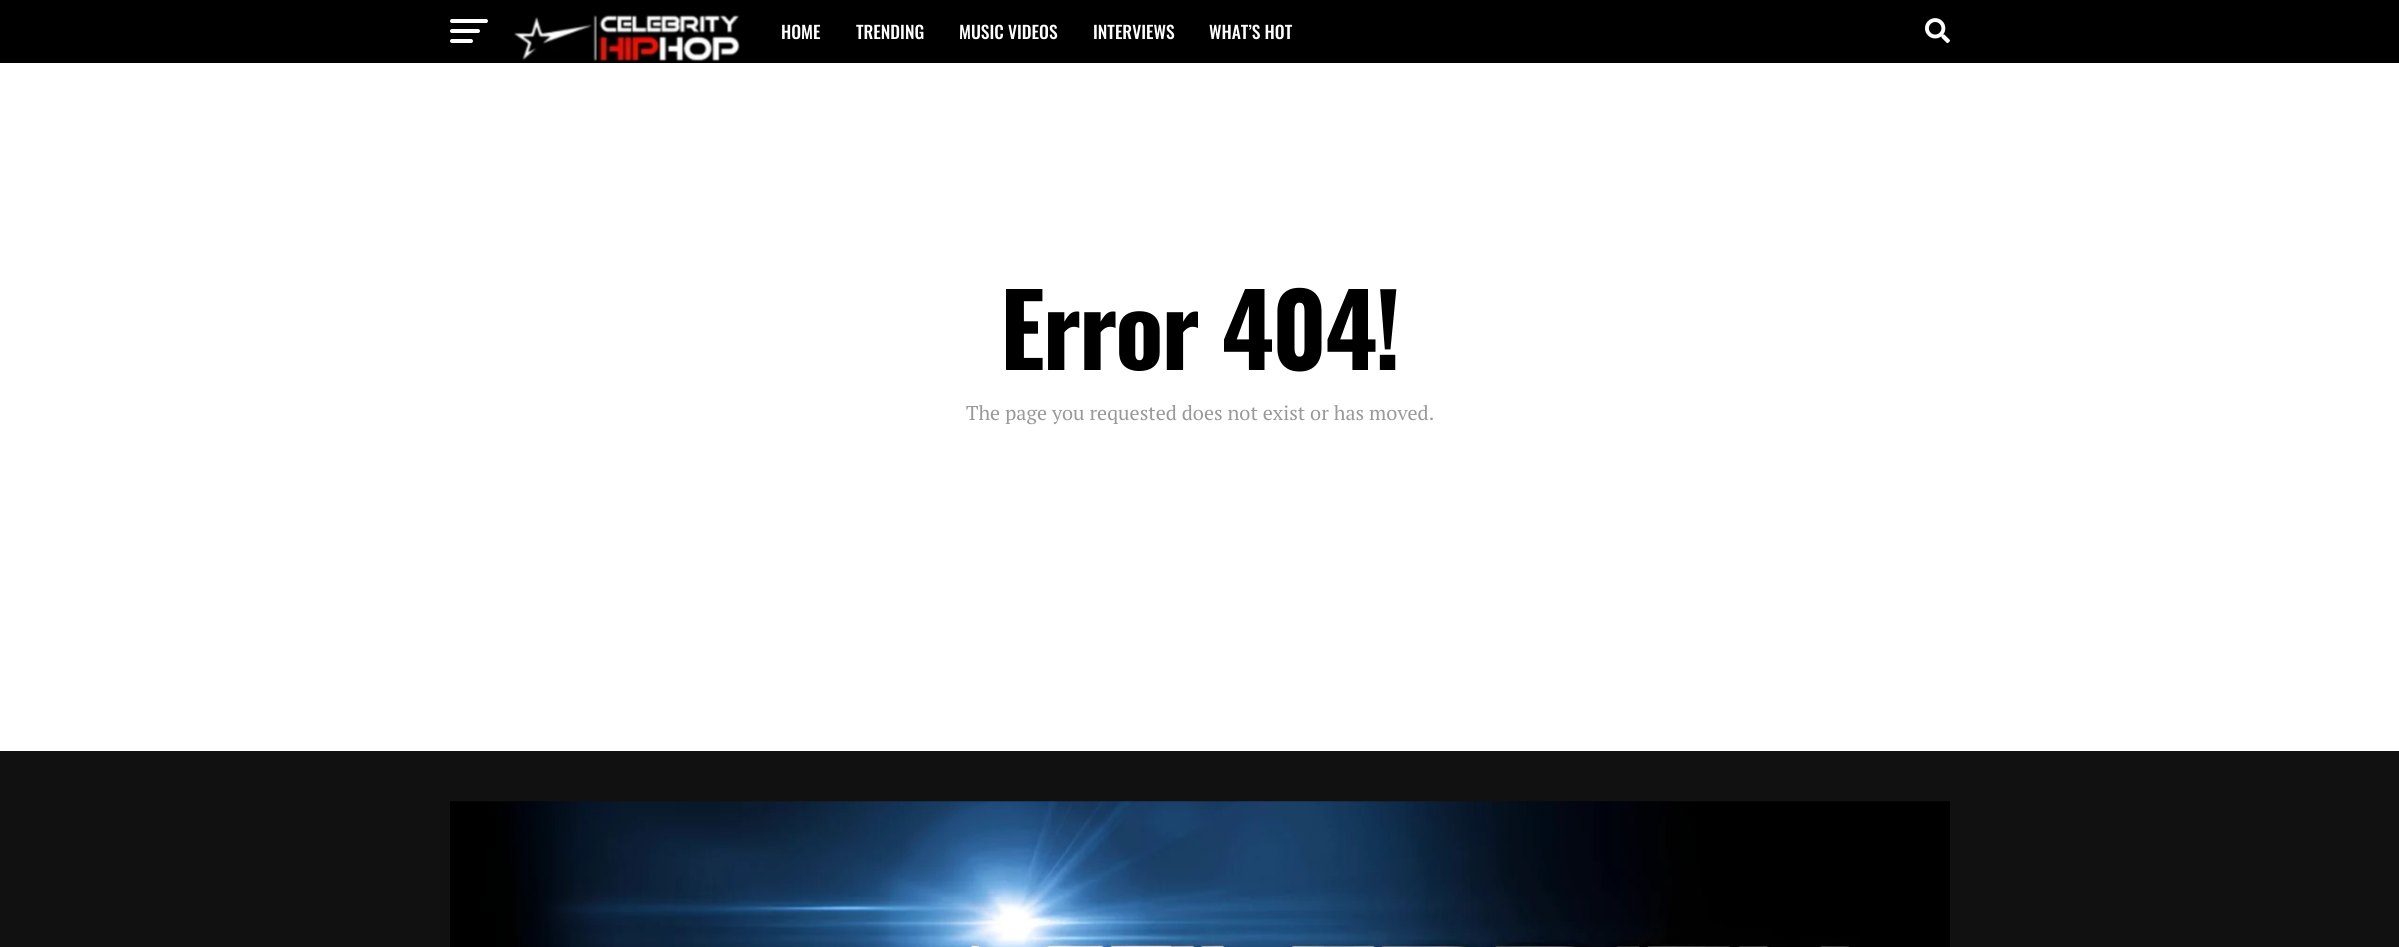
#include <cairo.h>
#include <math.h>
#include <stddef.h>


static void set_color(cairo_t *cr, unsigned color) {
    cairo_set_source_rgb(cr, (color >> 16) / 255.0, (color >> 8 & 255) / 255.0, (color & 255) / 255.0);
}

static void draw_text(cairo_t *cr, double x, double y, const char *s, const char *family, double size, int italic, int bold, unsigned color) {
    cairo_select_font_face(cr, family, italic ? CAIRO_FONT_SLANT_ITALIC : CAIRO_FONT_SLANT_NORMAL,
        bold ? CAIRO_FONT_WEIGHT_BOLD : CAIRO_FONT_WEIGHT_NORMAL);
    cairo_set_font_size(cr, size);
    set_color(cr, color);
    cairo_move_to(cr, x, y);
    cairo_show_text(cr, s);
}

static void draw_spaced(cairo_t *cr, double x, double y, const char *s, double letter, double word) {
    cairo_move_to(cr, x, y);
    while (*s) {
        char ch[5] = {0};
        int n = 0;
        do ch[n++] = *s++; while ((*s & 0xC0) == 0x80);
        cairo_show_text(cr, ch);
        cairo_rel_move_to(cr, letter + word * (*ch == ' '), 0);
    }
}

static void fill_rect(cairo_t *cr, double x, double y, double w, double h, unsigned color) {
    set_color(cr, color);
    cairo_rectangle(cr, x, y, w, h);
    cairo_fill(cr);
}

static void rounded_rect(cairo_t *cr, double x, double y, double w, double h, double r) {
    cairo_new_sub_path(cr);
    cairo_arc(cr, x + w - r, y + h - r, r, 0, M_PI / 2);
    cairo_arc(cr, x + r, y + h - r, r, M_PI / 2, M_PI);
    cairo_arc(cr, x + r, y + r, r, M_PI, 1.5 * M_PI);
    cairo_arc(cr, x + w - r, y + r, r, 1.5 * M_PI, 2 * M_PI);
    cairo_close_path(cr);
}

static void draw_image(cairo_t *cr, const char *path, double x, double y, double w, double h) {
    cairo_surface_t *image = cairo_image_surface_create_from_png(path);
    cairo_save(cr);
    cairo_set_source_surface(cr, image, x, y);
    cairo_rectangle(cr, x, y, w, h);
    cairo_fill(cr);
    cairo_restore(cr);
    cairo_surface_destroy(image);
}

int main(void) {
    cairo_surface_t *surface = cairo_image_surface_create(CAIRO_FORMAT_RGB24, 2399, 947);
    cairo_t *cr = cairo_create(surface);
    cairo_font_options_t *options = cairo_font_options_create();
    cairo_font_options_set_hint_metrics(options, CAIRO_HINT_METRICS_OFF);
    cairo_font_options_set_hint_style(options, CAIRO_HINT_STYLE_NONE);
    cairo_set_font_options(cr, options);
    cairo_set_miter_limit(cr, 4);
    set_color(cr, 0x000000);
    cairo_paint(cr);
    set_color(cr, 0xFFFFFF);
    rounded_rect(cr, 450, 19, 38, 4, 2);
    cairo_fill(cr);
    rounded_rect(cr, 450, 29, 30, 4, 2);
    cairo_fill(cr);
    rounded_rect(cr, 450, 39, 23, 4, 2);
    cairo_fill(cr);
    draw_image(cr, "assets/img1.png", 514, 14, 226, 49);
    draw_text(cr, 781, 39, "HOME", "Oswald Medium", 17.5, 0, 0, 0xFFFFFF);
    draw_text(cr, 856, 39, "TRENDING", "Oswald Medium", 17.5, 0, 0, 0xFFFFFF);
    draw_text(cr, 959, 39, "MUSIC VIDEOS", "Oswald Medium", 17.5, 0, 0, 0xFFFFFF);
    draw_text(cr, 1093, 39, "INTERVIEWS", "Oswald Medium", 17.5, 0, 0, 0xFFFFFF);
    draw_text(cr, 1209, 39, "WHAT’S HOT", "Oswald Medium", 17.5, 0, 0, 0xFFFFFF);
    draw_image(cr, "assets/img2.png", 1925, 18, 25, 26);
    fill_rect(cr, 0, 63, 2399, 688, 0xFFFFFF);
    cairo_select_font_face(cr, "Oswald", CAIRO_FONT_SLANT_NORMAL, CAIRO_FONT_WEIGHT_BOLD);
    cairo_set_font_size(cr, 100);
    set_color(cr, 0x000000);
    draw_spaced(cr, 1000, 370, "Error 404!", -2, 0);
    draw_text(cr, 966, 420, "The page you requested does not exist or has moved.", "PT Serif", 20, 0, 0, 0x999999);
    fill_rect(cr, 0, 751, 2399, 196, 0x111111);
    draw_image(cr, "assets/img3.png", 450, 801, 1500, 146);
    cairo_surface_write_to_png(surface, "output.png");
    cairo_font_options_destroy(options);
    cairo_destroy(cr);
    cairo_surface_destroy(surface);
    return 0;
}
